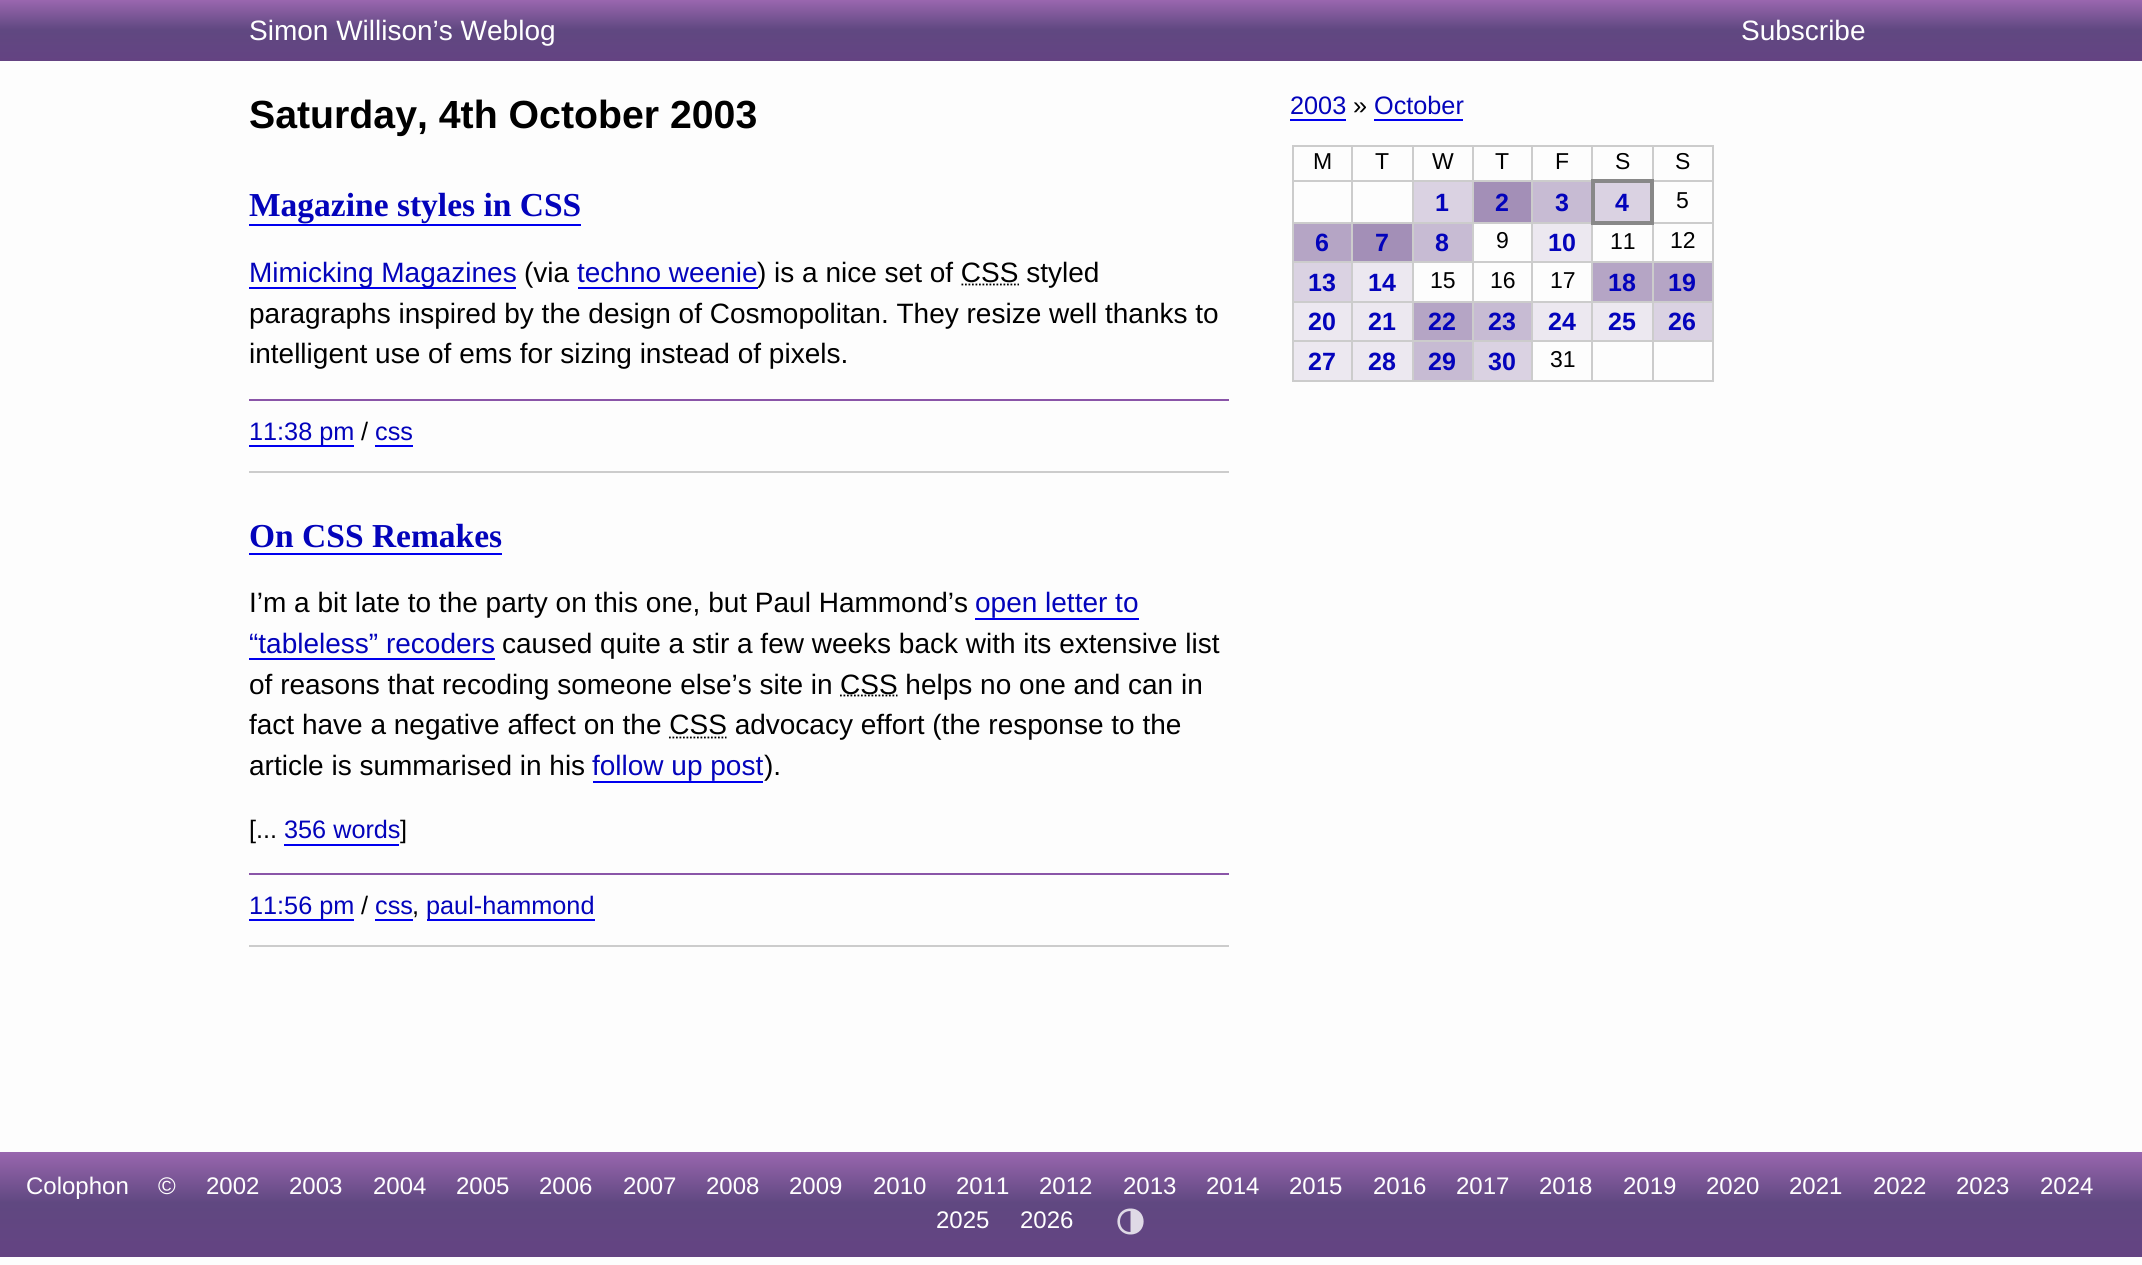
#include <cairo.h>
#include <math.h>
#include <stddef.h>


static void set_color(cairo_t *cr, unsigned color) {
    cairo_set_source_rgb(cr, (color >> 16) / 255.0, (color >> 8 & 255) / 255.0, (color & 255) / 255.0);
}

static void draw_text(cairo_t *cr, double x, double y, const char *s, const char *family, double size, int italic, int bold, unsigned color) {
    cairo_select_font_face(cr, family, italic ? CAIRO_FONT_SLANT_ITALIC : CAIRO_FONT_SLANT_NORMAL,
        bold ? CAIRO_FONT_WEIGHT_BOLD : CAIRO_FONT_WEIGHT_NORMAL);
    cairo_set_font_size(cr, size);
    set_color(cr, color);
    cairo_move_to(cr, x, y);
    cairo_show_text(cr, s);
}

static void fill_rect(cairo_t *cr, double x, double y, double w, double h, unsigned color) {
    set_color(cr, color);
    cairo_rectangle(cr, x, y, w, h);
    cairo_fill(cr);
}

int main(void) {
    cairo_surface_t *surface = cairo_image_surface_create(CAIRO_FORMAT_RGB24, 2142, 1265);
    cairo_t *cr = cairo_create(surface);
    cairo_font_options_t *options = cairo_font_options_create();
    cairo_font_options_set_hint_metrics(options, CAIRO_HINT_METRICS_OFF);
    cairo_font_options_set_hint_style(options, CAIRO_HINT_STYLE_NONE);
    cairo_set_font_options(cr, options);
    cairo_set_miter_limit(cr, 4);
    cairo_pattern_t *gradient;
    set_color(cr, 0xFDFDFD);
    cairo_paint(cr);
    gradient = cairo_pattern_create_linear(1071, 0, 1071, 61);
    cairo_pattern_add_color_stop_rgba(gradient, 0, 0.604, 0.404, 0.686, 1);
    cairo_pattern_add_color_stop_rgba(gradient, 0.49, 0.376, 0.282, 0.506, 1);
    cairo_pattern_add_color_stop_rgba(gradient, 1, 0.392, 0.263, 0.51, 1);
    cairo_set_source(cr, gradient);
    cairo_pattern_destroy(gradient);
    cairo_rectangle(cr, 0, 0, 2142, 61);
    cairo_fill(cr);
    draw_text(cr, 249, 40, "Simon Willison’s Weblog", "Liberation Sans", 28, 0, 0, 0xFFFFFF);
    draw_text(cr, 1741, 40, "Subscribe", "Liberation Sans", 28, 0, 0, 0xFFFFFF);
    draw_text(cr, 249, 128, "Saturday, 4th October 2003", "Liberation Sans", 39.25, 0, 1, 0x000000);
    fill_rect(cr, 249, 471, 980, 2, 0xCCCCCC);
    draw_text(cr, 249, 216, "Magazine styles in CSS", "Liberation Serif", 33.5, 0, 1, 0x0303BB);
    fill_rect(cr, 249, 224, 332, 2, 0x0000EE);
    fill_rect(cr, 249, 287, 267, 2, 0x0000EE);
    draw_text(cr, 249, 282, "Mimicking Magazines", "Liberation Sans", 28, 0, 0, 0x0303BB);
    draw_text(cr, 524, 282, "(via", "Liberation Sans", 28, 0, 0, 0x000000);
    draw_text(cr, 577, 282, "techno weenie", "Liberation Sans", 28, 0, 0, 0x0303BB);
    fill_rect(cr, 578, 287, 180, 2, 0x0000EE);
    draw_text(cr, 757, 282, ") is a nice set of CSS styled", "Liberation Sans", 28, 0, 0, 0x000000);
    cairo_new_path(cr);
    cairo_move_to(cr, 961.5, 284.5);
    cairo_line_to(cr, 1019, 284.5);
    cairo_set_line_width(cr, 1.8);
    cairo_set_dash(cr, (double[]){1.75, 1.75}, 2, 0);
    cairo_stroke(cr);
    draw_text(cr, 249, 323, "paragraphs inspired by the design of Cosmopolitan. They resize well thanks to", "Liberation Sans", 28, 0, 0, 0x000000);
    draw_text(cr, 249, 363, "intelligent use of ems for sizing instead of pixels.", "Liberation Sans", 28, 0, 0, 0x000000);
    fill_rect(cr, 249, 399, 980, 2, 0x8A55A8);
    fill_rect(cr, 249, 445, 105, 2, 0x0000EE);
    draw_text(cr, 249, 440, "11:38 pm", "Liberation Sans", 25.25, 0, 0, 0x0303BB);
    draw_text(cr, 361, 440, "/", "Liberation Sans", 25.25, 0, 0, 0x000000);
    draw_text(cr, 375, 440, "css", "Liberation Sans", 25.25, 0, 0, 0x0303BB);
    fill_rect(cr, 375, 445, 38, 2, 0x0000EE);
    fill_rect(cr, 249, 945, 980, 2, 0xCCCCCC);
    draw_text(cr, 249, 547, "On CSS Remakes", "Liberation Serif", 33.5, 0, 1, 0x0303BB);
    fill_rect(cr, 249, 553, 253, 2, 0x0000EE);
    draw_text(cr, 249, 612, "I’m a bit late to the party on this one, but Paul Hammond’s", "Liberation Sans", 28, 0, 0, 0x000000);
    draw_text(cr, 975, 612, "open letter to", "Liberation Sans", 28, 0, 0, 0x0303BB);
    fill_rect(cr, 975, 618, 164, 2, 0x0000EE);
    draw_text(cr, 249, 653, "“tableless” recoders", "Liberation Sans", 28, 0, 0, 0x0303BB);
    fill_rect(cr, 249, 658, 246, 2, 0x0000EE);
    draw_text(cr, 502, 653, "caused quite a stir a few weeks back with its extensive list", "Liberation Sans", 28, 0, 0, 0x000000);
    draw_text(cr, 249, 694, "of reasons that recoding someone else’s site in", "Liberation Sans", 28, 0, 0, 0x000000);
    cairo_new_path(cr);
    cairo_move_to(cr, 840, 695.5);
    cairo_line_to(cr, 897.5, 695.5);
    cairo_stroke(cr);
    draw_text(cr, 840, 694, "CSS helps no one and can in", "Liberation Sans", 28, 0, 0, 0x000000);
    draw_text(cr, 249, 734, "fact have a negative affect on the CSS advocacy effort (the response to the", "Liberation Sans", 28, 0, 0, 0x000000);
    cairo_new_path(cr);
    cairo_move_to(cr, 669, 737.5);
    cairo_line_to(cr, 726.5, 737.5);
    cairo_stroke(cr);
    draw_text(cr, 249, 775, "article is summarised in his", "Liberation Sans", 28, 0, 0, 0x000000);
    draw_text(cr, 592, 775, "follow up post", "Liberation Sans", 28, 0, 0, 0x0303BB);
    fill_rect(cr, 593, 781, 170, 2, 0x0000EE);
    draw_text(cr, 764, 775, ").", "Liberation Sans", 28, 0, 0, 0x000000);
    draw_text(cr, 249, 838, "[...", "Liberation Sans", 25.25, 0, 0, 0x000000);
    draw_text(cr, 284, 838, "356 words", "Liberation Sans", 25.25, 0, 0, 0x0303BB);
    draw_text(cr, 400, 838, "]", "Liberation Sans", 25.25, 0, 0, 0x000000);
    fill_rect(cr, 284, 844, 115, 2, 0x0000EE);
    fill_rect(cr, 249, 873, 980, 2, 0x8A55A8);
    fill_rect(cr, 249, 919, 105, 2, 0x0000EE);
    draw_text(cr, 249, 914, "11:56 pm", "Liberation Sans", 25.25, 0, 0, 0x0303BB);
    draw_text(cr, 361, 914, "/", "Liberation Sans", 25.25, 0, 0, 0x000000);
    draw_text(cr, 375, 914, "css", "Liberation Sans", 25.25, 0, 0, 0x0303BB);
    fill_rect(cr, 375, 919, 38, 2, 0x0000EE);
    draw_text(cr, 412, 914, ",", "Liberation Sans", 25.25, 0, 0, 0x000000);
    fill_rect(cr, 427, 919, 168, 2, 0x0000EE);
    draw_text(cr, 426, 914, "paul-hammond", "Liberation Sans", 25.25, 0, 0, 0x0303BB);
    draw_text(cr, 1290, 114, "2003", "Liberation Sans", 25.25, 0, 0, 0x0303BB);
    fill_rect(cr, 1290, 119, 56, 2, 0x0000EE);
    draw_text(cr, 1353, 114, "»", "Liberation Sans", 25.25, 0, 0, 0x000000);
    draw_text(cr, 1374, 114, "October", "Liberation Sans", 25.25, 0, 0, 0x0303BB);
    fill_rect(cr, 1374, 119, 89, 2, 0x0000EE);
    fill_rect(cr, 1292, 145, 421, 2, 0xCCCCCC);
    fill_rect(cr, 1712, 145, 2, 237, 0xCCCCCC);
    fill_rect(cr, 1292, 380, 421, 2, 0xCCCCCC);
    fill_rect(cr, 1292, 145, 2, 237, 0xCCCCCC);
    draw_text(cr, 1313, 169, "M", "Liberation Sans", 23, 0, 0, 0x000000);
    fill_rect(cr, 1531, 180, 62, 2, 0xCCCCCC);
    fill_rect(cr, 1652, 261, 61, 2, 0xCCCCCC);
    fill_rect(cr, 1652, 301, 61, 2, 0xCCCCCC);
    fill_rect(cr, 1652, 340, 61, 2, 0xCCCCCC);
    fill_rect(cr, 1652, 340, 2, 42, 0xCCCCCC);
    fill_rect(cr, 1591, 340, 63, 2, 0xCCCCCC);
    fill_rect(cr, 1652, 301, 2, 40, 0xCCCCCC);
    fill_rect(cr, 1591, 301, 63, 2, 0xCCCCCC);
    fill_rect(cr, 1652, 261, 2, 42, 0xCCCCCC);
    fill_rect(cr, 1591, 261, 63, 2, 0xCCCCCC);
    fill_rect(cr, 1591, 340, 2, 42, 0xCCCCCC);
    fill_rect(cr, 1531, 340, 62, 2, 0xCCCCCC);
    fill_rect(cr, 1591, 301, 2, 40, 0xCCCCCC);
    fill_rect(cr, 1531, 301, 62, 2, 0xCCCCCC);
    fill_rect(cr, 1591, 261, 2, 42, 0xCCCCCC);
    fill_rect(cr, 1531, 261, 62, 2, 0xCCCCCC);
    fill_rect(cr, 1591, 222, 2, 41, 0xCCCCCC);
    fill_rect(cr, 1531, 222, 62, 2, 0xCCCCCC);
    fill_rect(cr, 1531, 340, 2, 42, 0xCCCCCC);
    fill_rect(cr, 1472, 340, 61, 2, 0xCCCCCC);
    fill_rect(cr, 1531, 301, 2, 40, 0xCCCCCC);
    fill_rect(cr, 1472, 301, 61, 2, 0xCCCCCC);
    fill_rect(cr, 1531, 261, 2, 42, 0xCCCCCC);
    fill_rect(cr, 1472, 261, 61, 2, 0xCCCCCC);
    fill_rect(cr, 1531, 222, 2, 41, 0xCCCCCC);
    fill_rect(cr, 1472, 222, 61, 2, 0xCCCCCC);
    fill_rect(cr, 1531, 180, 2, 44, 0xCCCCCC);
    fill_rect(cr, 1472, 180, 61, 2, 0xCCCCCC);
    fill_rect(cr, 1472, 340, 2, 42, 0xCCCCCC);
    fill_rect(cr, 1412, 340, 62, 2, 0xCCCCCC);
    fill_rect(cr, 1472, 301, 2, 40, 0xCCCCCC);
    fill_rect(cr, 1412, 301, 62, 2, 0xCCCCCC);
    fill_rect(cr, 1472, 261, 2, 42, 0xCCCCCC);
    fill_rect(cr, 1412, 261, 62, 2, 0xCCCCCC);
    fill_rect(cr, 1472, 222, 2, 41, 0xCCCCCC);
    fill_rect(cr, 1412, 222, 62, 2, 0xCCCCCC);
    fill_rect(cr, 1472, 180, 2, 44, 0xCCCCCC);
    fill_rect(cr, 1412, 180, 62, 2, 0xCCCCCC);
    fill_rect(cr, 1412, 340, 2, 42, 0xCCCCCC);
    fill_rect(cr, 1351, 340, 63, 2, 0xCCCCCC);
    fill_rect(cr, 1412, 301, 2, 40, 0xCCCCCC);
    fill_rect(cr, 1351, 301, 63, 2, 0xCCCCCC);
    fill_rect(cr, 1412, 261, 2, 42, 0xCCCCCC);
    fill_rect(cr, 1351, 261, 63, 2, 0xCCCCCC);
    fill_rect(cr, 1412, 222, 2, 41, 0xCCCCCC);
    fill_rect(cr, 1351, 222, 63, 2, 0xCCCCCC);
    fill_rect(cr, 1412, 180, 2, 44, 0xCCCCCC);
    fill_rect(cr, 1351, 180, 63, 2, 0xCCCCCC);
    fill_rect(cr, 1351, 340, 2, 42, 0xCCCCCC);
    fill_rect(cr, 1292, 340, 61, 2, 0xCCCCCC);
    fill_rect(cr, 1351, 301, 2, 40, 0xCCCCCC);
    fill_rect(cr, 1292, 301, 61, 2, 0xCCCCCC);
    fill_rect(cr, 1351, 261, 2, 42, 0xCCCCCC);
    fill_rect(cr, 1292, 261, 61, 2, 0xCCCCCC);
    fill_rect(cr, 1351, 222, 2, 41, 0xCCCCCC);
    fill_rect(cr, 1292, 222, 61, 2, 0xCCCCCC);
    fill_rect(cr, 1351, 180, 2, 44, 0xCCCCCC);
    fill_rect(cr, 1292, 180, 61, 2, 0xCCCCCC);
    fill_rect(cr, 1351, 145, 2, 37, 0xCCCCCC);
    draw_text(cr, 1375, 169, "T", "Liberation Sans", 23, 0, 0, 0x000000);
    fill_rect(cr, 1412, 145, 2, 37, 0xCCCCCC);
    draw_text(cr, 1432, 169, "W", "Liberation Sans", 23, 0, 0, 0x000000);
    fill_rect(cr, 1472, 145, 2, 37, 0xCCCCCC);
    draw_text(cr, 1495, 169, "T", "Liberation Sans", 23, 0, 0, 0x000000);
    fill_rect(cr, 1531, 145, 2, 37, 0xCCCCCC);
    draw_text(cr, 1555, 169, "F", "Liberation Sans", 23, 0, 0, 0x000000);
    fill_rect(cr, 1591, 145, 2, 37, 0xCCCCCC);
    draw_text(cr, 1615, 169, "S", "Liberation Sans", 23, 0, 0, 0x000000);
    fill_rect(cr, 1652, 180, 61, 2, 0xCCCCCC);
    fill_rect(cr, 1652, 145, 2, 37, 0xCCCCCC);
    draw_text(cr, 1675, 169, "S", "Liberation Sans", 23, 0, 0, 0x000000);
    fill_rect(cr, 1414, 182, 58, 40, 0xDAD2E2);
    draw_text(cr, 1435, 211, "1", "Liberation Sans", 25, 0, 1, 0x0303BB);
    fill_rect(cr, 1474, 182, 57, 40, 0xA38FB7);
    draw_text(cr, 1495, 211, "2", "Liberation Sans", 25, 0, 1, 0x0303BB);
    fill_rect(cr, 1533, 182, 58, 40, 0xC7BBD3);
    draw_text(cr, 1555, 211, "3", "Liberation Sans", 25, 0, 1, 0x0303BB);
    fill_rect(cr, 1595, 183, 55, 38, 0xDAD2E2);
    fill_rect(cr, 1591, 179, 63, 4, 0x888888);
    fill_rect(cr, 1652, 222, 61, 2, 0xCCCCCC);
    fill_rect(cr, 1652, 222, 2, 41, 0xCCCCCC);
    fill_rect(cr, 1650, 179, 4, 45, 0x888888);
    fill_rect(cr, 1591, 221, 63, 4, 0x888888);
    fill_rect(cr, 1591, 179, 4, 45, 0x888888);
    draw_text(cr, 1615, 211, "4", "Liberation Sans", 25, 0, 1, 0x0303BB);
    draw_text(cr, 1676, 208, "5", "Liberation Sans", 23, 0, 0, 0x000000);
    fill_rect(cr, 1294, 224, 57, 37, 0xB5A5C5);
    draw_text(cr, 1315, 251, "6", "Liberation Sans", 25, 0, 1, 0x0303BB);
    fill_rect(cr, 1353, 224, 59, 37, 0xA38FB7);
    draw_text(cr, 1375, 251, "7", "Liberation Sans", 25, 0, 1, 0x0303BB);
    fill_rect(cr, 1414, 224, 58, 37, 0xC7BBD3);
    draw_text(cr, 1435, 251, "8", "Liberation Sans", 25, 0, 1, 0x0303BB);
    draw_text(cr, 1496, 248, "9", "Liberation Sans", 23, 0, 0, 0x000000);
    fill_rect(cr, 1533, 224, 58, 37, 0xECE8F0);
    draw_text(cr, 1548, 251, "10", "Liberation Sans", 25, 0, 1, 0x0303BB);
    draw_text(cr, 1610, 249, "11", "Liberation Sans", 23, 0, 0, 0x000000);
    draw_text(cr, 1670, 248, "12", "Liberation Sans", 23, 0, 0, 0x000000);
    fill_rect(cr, 1294, 263, 57, 38, 0xDAD2E2);
    draw_text(cr, 1308, 291, "13", "Liberation Sans", 25, 0, 1, 0x0303BB);
    fill_rect(cr, 1353, 263, 59, 38, 0xECE8F0);
    draw_text(cr, 1368, 291, "14", "Liberation Sans", 25, 0, 1, 0x0303BB);
    draw_text(cr, 1430, 288, "15", "Liberation Sans", 23, 0, 0, 0x000000);
    draw_text(cr, 1490, 288, "16", "Liberation Sans", 23, 0, 0, 0x000000);
    draw_text(cr, 1550, 288, "17", "Liberation Sans", 23, 0, 0, 0x000000);
    fill_rect(cr, 1593, 263, 59, 38, 0xB5A5C5);
    draw_text(cr, 1608, 291, "18", "Liberation Sans", 25, 0, 1, 0x0303BB);
    fill_rect(cr, 1654, 263, 58, 38, 0xB5A5C5);
    draw_text(cr, 1668, 291, "19", "Liberation Sans", 25, 0, 1, 0x0303BB);
    fill_rect(cr, 1294, 303, 57, 37, 0xECE8F0);
    draw_text(cr, 1308, 330, "20", "Liberation Sans", 25, 0, 1, 0x0303BB);
    fill_rect(cr, 1353, 303, 59, 37, 0xECE8F0);
    draw_text(cr, 1368, 330, "21", "Liberation Sans", 25, 0, 1, 0x0303BB);
    fill_rect(cr, 1414, 303, 58, 37, 0xB5A5C5);
    draw_text(cr, 1428, 330, "22", "Liberation Sans", 25, 0, 1, 0x0303BB);
    fill_rect(cr, 1474, 303, 57, 37, 0xC7BBD3);
    draw_text(cr, 1488, 330, "23", "Liberation Sans", 25, 0, 1, 0x0303BB);
    fill_rect(cr, 1533, 303, 58, 37, 0xECE8F0);
    draw_text(cr, 1548, 330, "24", "Liberation Sans", 25, 0, 1, 0x0303BB);
    fill_rect(cr, 1593, 303, 59, 37, 0xECE8F0);
    draw_text(cr, 1608, 330, "25", "Liberation Sans", 25, 0, 1, 0x0303BB);
    fill_rect(cr, 1654, 303, 58, 37, 0xDAD2E2);
    draw_text(cr, 1668, 330, "26", "Liberation Sans", 25, 0, 1, 0x0303BB);
    fill_rect(cr, 1294, 342, 57, 38, 0xECE8F0);
    draw_text(cr, 1308, 370, "27", "Liberation Sans", 25, 0, 1, 0x0303BB);
    fill_rect(cr, 1353, 342, 59, 38, 0xECE8F0);
    draw_text(cr, 1368, 370, "28", "Liberation Sans", 25, 0, 1, 0x0303BB);
    fill_rect(cr, 1414, 342, 58, 38, 0xC7BBD3);
    draw_text(cr, 1428, 370, "29", "Liberation Sans", 25, 0, 1, 0x0303BB);
    fill_rect(cr, 1474, 342, 57, 38, 0xDAD2E2);
    draw_text(cr, 1488, 370, "30", "Liberation Sans", 25, 0, 1, 0x0303BB);
    draw_text(cr, 1550, 367, "31", "Liberation Sans", 23, 0, 0, 0x000000);
    gradient = cairo_pattern_create_linear(1071, 1151, 1071, 1257);
    cairo_pattern_add_color_stop_rgba(gradient, 0, 0.604, 0.404, 0.686, 1);
    cairo_pattern_add_color_stop_rgba(gradient, 0.49, 0.376, 0.282, 0.506, 1);
    cairo_pattern_add_color_stop_rgba(gradient, 1, 0.392, 0.263, 0.51, 1);
    cairo_set_source(cr, gradient);
    cairo_pattern_destroy(gradient);
    cairo_rectangle(cr, 0, 1152, 2142, 105);
    cairo_fill(cr);
    draw_text(cr, 26, 1194, "Colophon", "Liberation Sans", 24, 0, 0, 0xFFFFFF);
    draw_text(cr, 158, 1194, "©", "Liberation Sans", 24, 0, 0, 0xFFFFFF);
    draw_text(cr, 206, 1194, "2002", "Liberation Sans", 24, 0, 0, 0xFFFFFF);
    draw_text(cr, 289, 1194, "2003", "Liberation Sans", 24, 0, 0, 0xFFFFFF);
    draw_text(cr, 373, 1194, "2004", "Liberation Sans", 24, 0, 0, 0xFFFFFF);
    draw_text(cr, 456, 1194, "2005", "Liberation Sans", 24, 0, 0, 0xFFFFFF);
    draw_text(cr, 539, 1194, "2006", "Liberation Sans", 24, 0, 0, 0xFFFFFF);
    draw_text(cr, 623, 1194, "2007", "Liberation Sans", 24, 0, 0, 0xFFFFFF);
    draw_text(cr, 706, 1194, "2008", "Liberation Sans", 24, 0, 0, 0xFFFFFF);
    draw_text(cr, 789, 1194, "2009", "Liberation Sans", 24, 0, 0, 0xFFFFFF);
    draw_text(cr, 873, 1194, "2010", "Liberation Sans", 24, 0, 0, 0xFFFFFF);
    draw_text(cr, 956, 1194, "2011", "Liberation Sans", 24, 0, 0, 0xFFFFFF);
    draw_text(cr, 1039, 1194, "2012", "Liberation Sans", 24, 0, 0, 0xFFFFFF);
    draw_text(cr, 1123, 1194, "2013", "Liberation Sans", 24, 0, 0, 0xFFFFFF);
    draw_text(cr, 1206, 1194, "2014", "Liberation Sans", 24, 0, 0, 0xFFFFFF);
    draw_text(cr, 1289, 1194, "2015", "Liberation Sans", 24, 0, 0, 0xFFFFFF);
    draw_text(cr, 1373, 1194, "2016", "Liberation Sans", 24, 0, 0, 0xFFFFFF);
    draw_text(cr, 1456, 1194, "2017", "Liberation Sans", 24, 0, 0, 0xFFFFFF);
    draw_text(cr, 1539, 1194, "2018", "Liberation Sans", 24, 0, 0, 0xFFFFFF);
    draw_text(cr, 1623, 1194, "2019", "Liberation Sans", 24, 0, 0, 0xFFFFFF);
    draw_text(cr, 1706, 1194, "2020", "Liberation Sans", 24, 0, 0, 0xFFFFFF);
    draw_text(cr, 1789, 1194, "2021", "Liberation Sans", 24, 0, 0, 0xFFFFFF);
    draw_text(cr, 1873, 1194, "2022", "Liberation Sans", 24, 0, 0, 0xFFFFFF);
    draw_text(cr, 1956, 1194, "2023", "Liberation Sans", 24, 0, 0, 0xFFFFFF);
    draw_text(cr, 2040, 1194, "2024", "Liberation Sans", 24, 0, 0, 0xFFFFFF);
    draw_text(cr, 936, 1228, "2025", "Liberation Sans", 24, 0, 0, 0xFFFFFF);
    draw_text(cr, 1020, 1228, "2026", "Liberation Sans", 24, 0, 0, 0xFFFFFF);
    set_color(cr, 0xDFDAE6);
    cairo_new_path(cr);
    cairo_move_to(cr, 1130.5, 1234.5);
    cairo_curve_to(cr, 1113, 1234.5, 1113, 1208.5, 1130.5, 1208.5);
    cairo_curve_to(cr, 1148, 1208.5, 1148, 1234.5, 1130.5, 1234.5);
    cairo_close_path(cr);
    cairo_move_to(cr, 1130.5, 1232);
    cairo_line_to(cr, 1130.5, 1211);
    cairo_curve_to(cr, 1116.5, 1211, 1116.5, 1232, 1130.5, 1232);
    cairo_close_path(cr);
    cairo_fill(cr);
    cairo_surface_write_to_png(surface, "output.png");
    cairo_font_options_destroy(options);
    cairo_destroy(cr);
    cairo_surface_destroy(surface);
    return 0;
}
